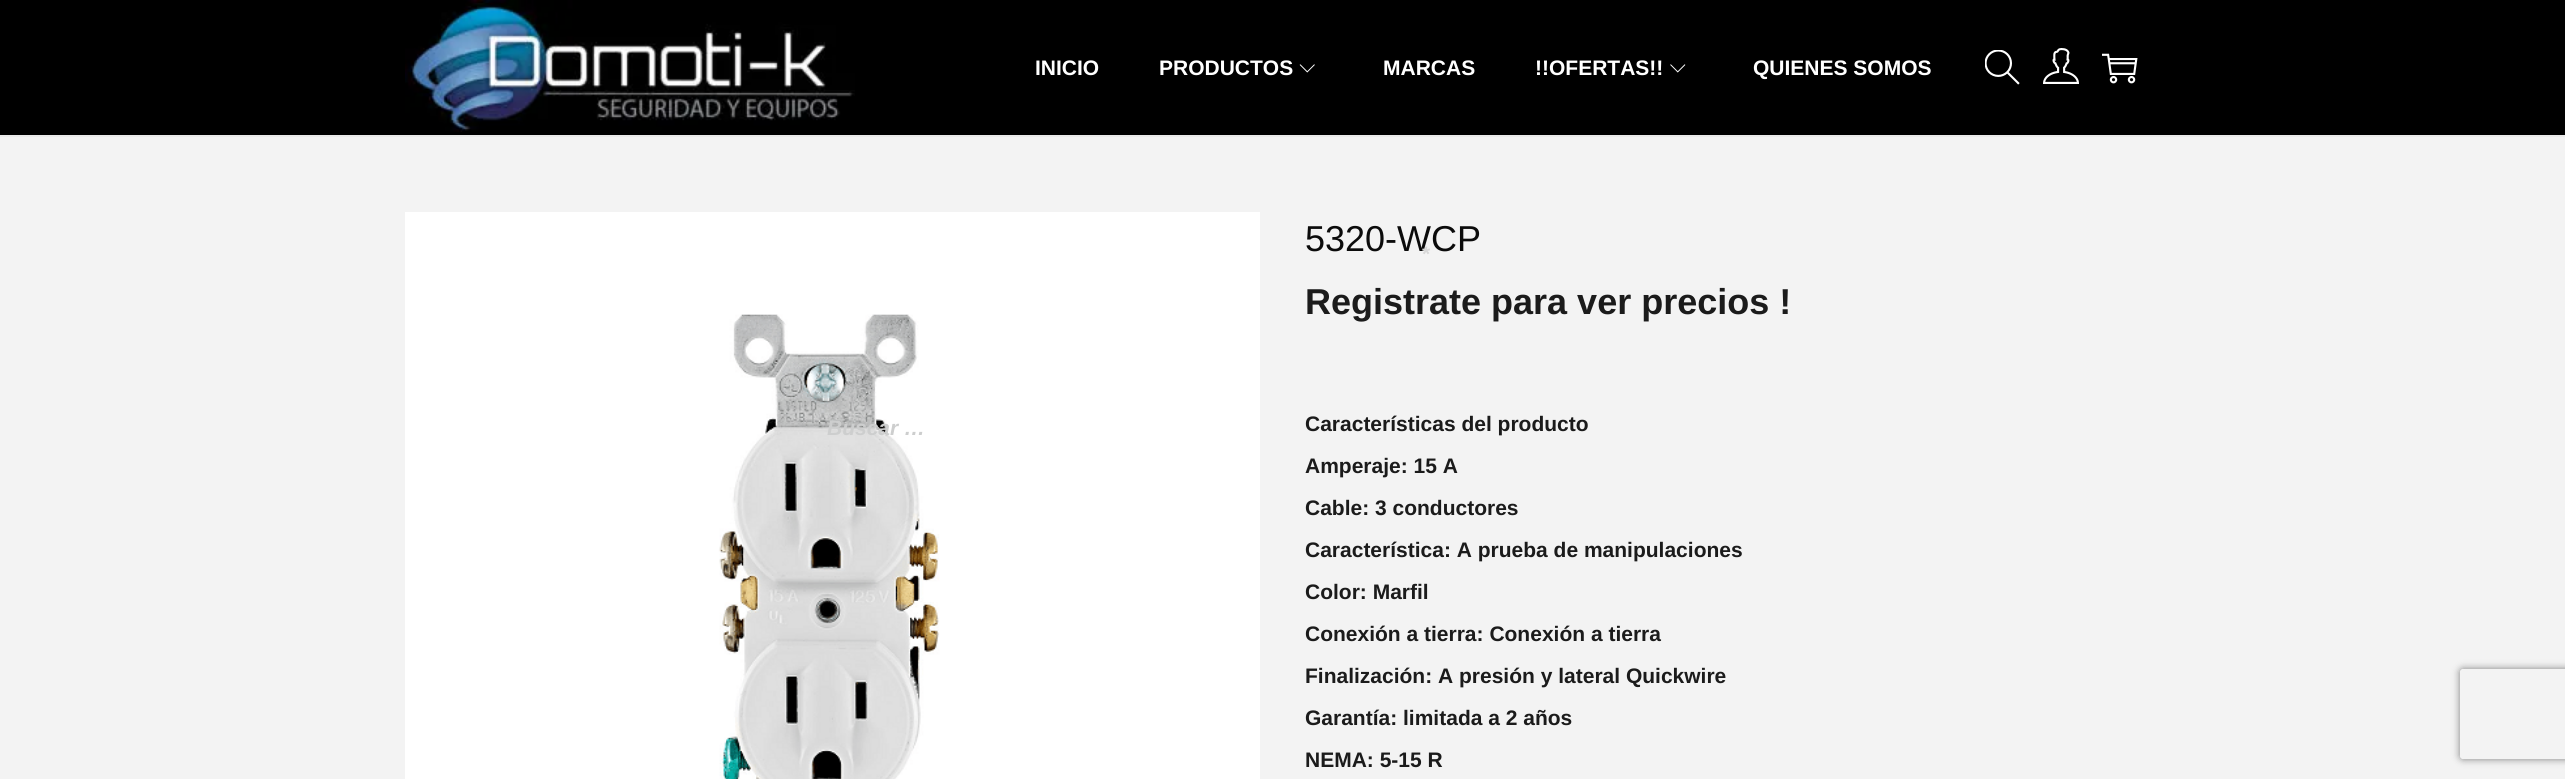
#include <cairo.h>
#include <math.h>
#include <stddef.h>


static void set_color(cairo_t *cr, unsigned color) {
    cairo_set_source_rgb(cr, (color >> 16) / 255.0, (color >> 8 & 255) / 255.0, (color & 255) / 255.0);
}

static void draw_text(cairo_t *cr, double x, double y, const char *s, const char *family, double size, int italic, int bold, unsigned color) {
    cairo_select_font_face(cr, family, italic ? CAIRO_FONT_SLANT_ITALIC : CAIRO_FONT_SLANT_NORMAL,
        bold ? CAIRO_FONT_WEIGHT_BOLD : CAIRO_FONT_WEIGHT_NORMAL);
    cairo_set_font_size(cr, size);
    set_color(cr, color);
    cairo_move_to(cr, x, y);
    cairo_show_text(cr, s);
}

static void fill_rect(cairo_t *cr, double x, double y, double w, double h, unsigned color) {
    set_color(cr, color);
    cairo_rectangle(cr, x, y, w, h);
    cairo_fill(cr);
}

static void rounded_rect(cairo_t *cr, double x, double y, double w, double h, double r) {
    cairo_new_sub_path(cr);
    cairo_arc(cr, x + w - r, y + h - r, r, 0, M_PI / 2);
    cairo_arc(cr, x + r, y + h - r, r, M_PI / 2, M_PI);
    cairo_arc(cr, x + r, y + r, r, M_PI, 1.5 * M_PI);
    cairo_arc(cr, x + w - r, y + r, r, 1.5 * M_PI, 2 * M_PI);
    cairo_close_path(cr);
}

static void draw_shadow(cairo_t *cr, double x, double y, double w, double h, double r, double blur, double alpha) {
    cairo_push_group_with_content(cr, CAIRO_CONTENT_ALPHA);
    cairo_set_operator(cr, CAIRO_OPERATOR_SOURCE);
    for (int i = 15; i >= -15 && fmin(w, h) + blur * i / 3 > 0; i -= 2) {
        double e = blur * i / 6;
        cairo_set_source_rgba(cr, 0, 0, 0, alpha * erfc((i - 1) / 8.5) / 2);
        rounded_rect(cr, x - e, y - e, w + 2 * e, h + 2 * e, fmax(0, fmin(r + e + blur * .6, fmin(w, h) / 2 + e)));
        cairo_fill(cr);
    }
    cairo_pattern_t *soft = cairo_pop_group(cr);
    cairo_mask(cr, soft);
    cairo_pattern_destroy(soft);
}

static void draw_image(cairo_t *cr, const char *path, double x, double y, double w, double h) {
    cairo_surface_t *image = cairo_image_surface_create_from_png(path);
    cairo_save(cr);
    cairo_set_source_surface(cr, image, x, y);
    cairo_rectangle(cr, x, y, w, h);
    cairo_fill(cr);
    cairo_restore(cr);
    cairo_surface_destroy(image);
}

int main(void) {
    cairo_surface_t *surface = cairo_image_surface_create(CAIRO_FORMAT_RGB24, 2565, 779);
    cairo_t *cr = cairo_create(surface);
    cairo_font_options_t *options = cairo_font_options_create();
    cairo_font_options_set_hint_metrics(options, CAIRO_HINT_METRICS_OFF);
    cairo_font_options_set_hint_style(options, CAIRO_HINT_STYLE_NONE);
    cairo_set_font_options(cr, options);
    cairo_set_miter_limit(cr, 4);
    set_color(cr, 0x000000);
    cairo_paint(cr);
    fill_rect(cr, 0, 135, 2565, 2, 0xEAEAEA);
    draw_image(cr, "assets/img1.png", 405, 0, 450, 132);
    draw_text(cr, 1035, 75, "INICIO", "Liberation Sans", 21, 0, 1, 0xFFFFFF);
    draw_text(cr, 1159, 75, "PRODUCTOS", "Liberation Sans", 21, 0, 1, 0xFFFFFF);
    draw_image(cr, "assets/img2.png", 1299, 64, 16, 9);
    draw_text(cr, 1383, 75, "MARCAS", "Liberation Sans", 21, 0, 1, 0xFFFFFF);
    draw_text(cr, 1535, 75, "!!OFERTAS!!", "Liberation Sans", 21, 0, 1, 0xFFFFFF);
    draw_image(cr, "assets/img3.png", 1670, 64, 16, 9);
    draw_text(cr, 1753, 75, "QUIENES SOMOS", "Liberation Sans", 21, 0, 1, 0xFFFFFF);
    draw_image(cr, "assets/img4.png", 1985, 50, 35, 35);
    draw_image(cr, "assets/img5.png", 2043, 48, 36, 36);
    draw_image(cr, "assets/img6.png", 2102, 53, 36, 31);
    fill_rect(cr, 0, 137, 2565, 642, 0xF3F3F3);
    draw_image(cr, "assets/img7.png", 405, 212, 855, 567);
    draw_text(cr, 1305, 251, "5320-WCP", "Liberation Sans", 36, 0, 0, 0x0B0B0B);
    draw_text(cr, 1305, 314, "Registrate para ver precios !", "Liberation Sans", 36, 0, 1, 0x1B1B1B);
    draw_text(cr, 1305, 431, "Características del producto", "Liberation Sans", 21, 0, 1, 0x1B1B1B);
    draw_text(cr, 1305, 473, "Amperaje: 15 A", "Liberation Sans", 21, 0, 1, 0x1B1B1B);
    draw_text(cr, 1305, 515, "Cable: 3 conductores", "Liberation Sans", 21, 0, 1, 0x1B1B1B);
    draw_text(cr, 1305, 557, "Característica: A prueba de manipulaciones", "Liberation Sans", 21, 0, 1, 0x1B1B1B);
    draw_text(cr, 1305, 599, "Color: Marfil", "Liberation Sans", 21, 0, 1, 0x1B1B1B);
    draw_text(cr, 1305, 641, "Conexión a tierra: Conexión a tierra", "Liberation Sans", 21, 0, 1, 0x1B1B1B);
    draw_text(cr, 1305, 683, "Finalización: A presión y lateral Quickwire", "Liberation Sans", 21, 0, 1, 0x1B1B1B);
    draw_text(cr, 1305, 725, "Garantía: limitada a 2 años", "Liberation Sans", 21, 0, 1, 0x1B1B1B);
    draw_text(cr, 1305, 767, "NEMA: 5-15 R", "Liberation Sans", 21, 0, 1, 0x1B1B1B);
    draw_text(cr, 1422, 261, "*", "Liberation Sans", 21, 0, 1, 0xD8D8D8);
    draw_text(cr, 827, 435, "Buscar …", "Liberation Sans", 21, 1, 1, 0xCDCECE);
    cairo_save(cr);
    cairo_set_fill_rule(cr, CAIRO_FILL_RULE_EVEN_ODD);
    cairo_new_path(cr);
    cairo_move_to(cr, 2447, 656);
    cairo_line_to(cr, 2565, 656);
    cairo_line_to(cr, 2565, 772);
    cairo_line_to(cr, 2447, 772);
    cairo_close_path(cr);
    cairo_move_to(cr, 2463, 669);
    cairo_line_to(cr, 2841, 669);
    cairo_curve_to(cr, 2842.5, 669, 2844, 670.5, 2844, 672);
    cairo_line_to(cr, 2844, 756);
    cairo_curve_to(cr, 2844, 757.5, 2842.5, 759, 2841, 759);
    cairo_line_to(cr, 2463, 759);
    cairo_curve_to(cr, 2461.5, 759, 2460, 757.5, 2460, 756);
    cairo_line_to(cr, 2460, 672);
    cairo_curve_to(cr, 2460, 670.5, 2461.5, 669, 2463, 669);
    cairo_close_path(cr);
    cairo_clip(cr);
    set_color(cr, 0x808080);
    draw_shadow(cr, 2460, 669, 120, 90, 3, 4, 1);
    cairo_restore(cr);
    cairo_surface_write_to_png(surface, "output.png");
    cairo_font_options_destroy(options);
    cairo_destroy(cr);
    cairo_surface_destroy(surface);
    return 0;
}
